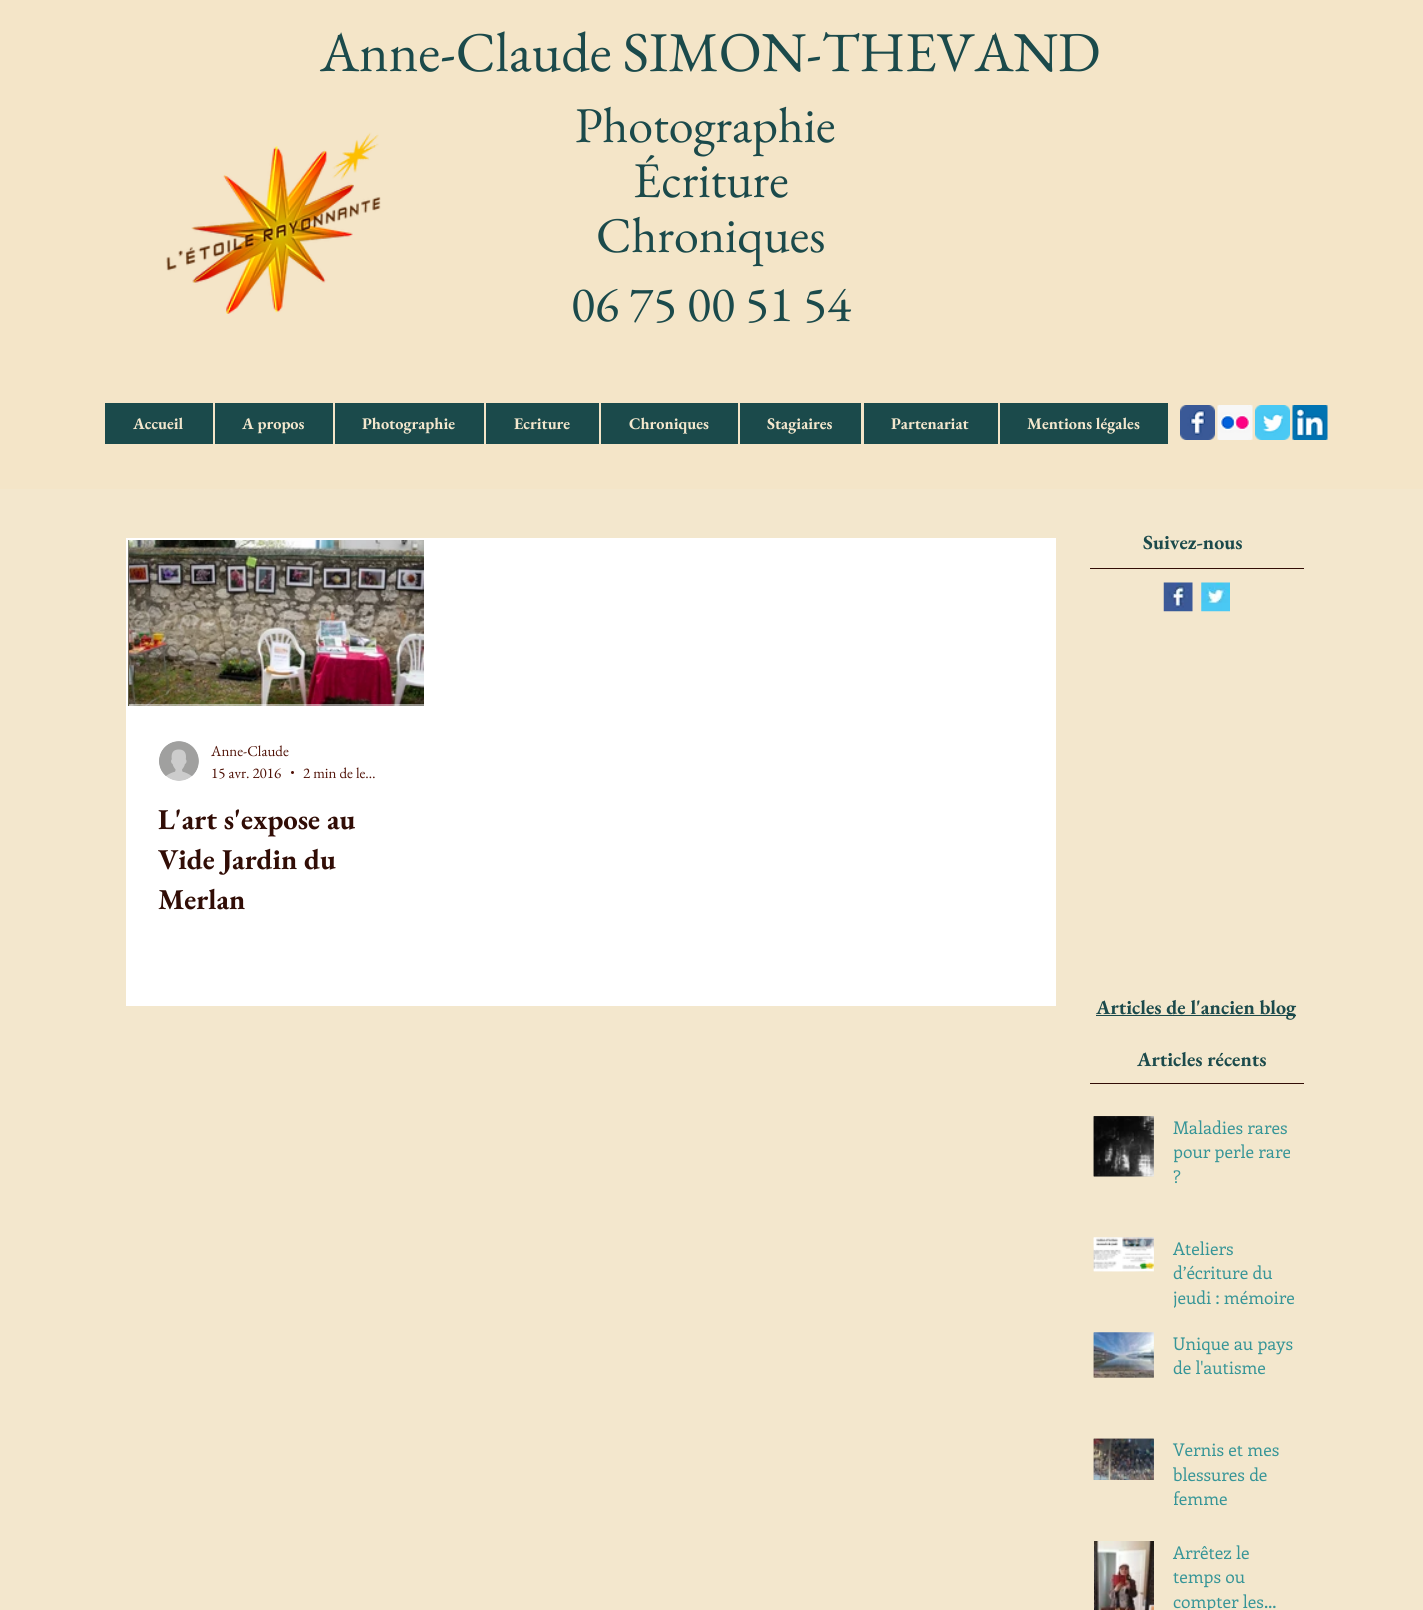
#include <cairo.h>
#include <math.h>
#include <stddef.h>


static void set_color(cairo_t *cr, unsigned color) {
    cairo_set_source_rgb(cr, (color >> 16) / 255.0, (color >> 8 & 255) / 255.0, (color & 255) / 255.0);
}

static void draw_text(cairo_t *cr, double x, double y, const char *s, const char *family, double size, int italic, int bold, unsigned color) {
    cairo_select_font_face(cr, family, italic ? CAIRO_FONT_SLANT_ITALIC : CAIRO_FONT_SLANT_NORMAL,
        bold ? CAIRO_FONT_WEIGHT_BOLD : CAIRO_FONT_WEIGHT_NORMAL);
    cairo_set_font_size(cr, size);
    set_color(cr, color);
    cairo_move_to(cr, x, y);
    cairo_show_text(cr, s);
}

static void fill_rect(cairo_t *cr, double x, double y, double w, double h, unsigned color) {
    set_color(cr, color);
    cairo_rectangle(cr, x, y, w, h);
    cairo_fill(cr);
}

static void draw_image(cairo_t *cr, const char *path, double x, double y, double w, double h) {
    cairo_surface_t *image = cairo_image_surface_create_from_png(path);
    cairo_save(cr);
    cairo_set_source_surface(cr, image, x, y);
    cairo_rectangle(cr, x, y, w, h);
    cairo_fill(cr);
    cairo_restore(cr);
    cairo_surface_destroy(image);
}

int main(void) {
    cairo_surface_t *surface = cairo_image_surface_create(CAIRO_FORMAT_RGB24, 1423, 1610);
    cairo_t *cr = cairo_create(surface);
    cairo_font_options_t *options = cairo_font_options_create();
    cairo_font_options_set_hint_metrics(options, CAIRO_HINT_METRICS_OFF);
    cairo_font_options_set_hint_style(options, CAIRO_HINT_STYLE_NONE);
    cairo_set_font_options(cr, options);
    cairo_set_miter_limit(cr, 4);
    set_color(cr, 0xF3E7CD);
    cairo_paint(cr);
    fill_rect(cr, 0, 0, 1423, 489, 0xF4E5C8);
    draw_image(cr, "assets/img1.png", 166, 132, 215, 182);
    draw_text(cr, 320, 71, "Anne-Claude SIMON-THEVAND", "EB Garamond", 56.25, 0, 0, 0x1B4A4B);
    draw_text(cr, 575, 142, "Photographie", "EB Garamond", 50, 0, 0, 0x1B4A4B);
    draw_text(cr, 633, 197, "Écriture", "EB Garamond", 50, 0, 0, 0x1B4A4B);
    draw_text(cr, 596, 252, "Chroniques", "EB Garamond", 50, 0, 0, 0x1B4A4B);
    draw_text(cr, 571, 321, "06 75 00 51 54", "EB Garamond", 50, 0, 0, 0x1B4A4B);
    fill_rect(cr, 105, 403, 108, 41, 0x1B4A4B);
    draw_text(cr, 133, 429, "Accueil", "EB Garamond", 16.25, 0, 1, 0xF3E7CD);
    fill_rect(cr, 215, 403, 118, 41, 0x1B4A4B);
    draw_text(cr, 242, 429, "A propos", "EB Garamond", 16.25, 0, 1, 0xF3E7CD);
    fill_rect(cr, 335, 403, 149, 41, 0x1B4A4B);
    draw_text(cr, 362, 429, "Photographie", "EB Garamond", 16.25, 0, 1, 0xF3E7CD);
    fill_rect(cr, 486, 403, 113, 41, 0x1B4A4B);
    draw_text(cr, 514, 429, "Ecriture", "EB Garamond", 16.25, 0, 1, 0xF3E7CD);
    fill_rect(cr, 601, 403, 137, 41, 0x1B4A4B);
    draw_text(cr, 629, 429, "Chroniques", "EB Garamond", 16.25, 0, 1, 0xF3E7CD);
    fill_rect(cr, 740, 403, 121, 41, 0x1B4A4B);
    draw_text(cr, 767, 429, "Stagiaires", "EB Garamond", 16.25, 0, 1, 0xF3E7CD);
    fill_rect(cr, 864, 403, 134, 41, 0x1B4A4B);
    draw_text(cr, 891, 429, "Partenariat", "EB Garamond", 16.25, 0, 1, 0xF3E7CD);
    fill_rect(cr, 1000, 403, 168, 41, 0x1B4A4B);
    draw_text(cr, 1027, 429, "Mentions légales", "EB Garamond", 16.25, 0, 1, 0xF3E7CD);
    draw_image(cr, "assets/img2.png", 1180, 405, 35, 35);
    draw_image(cr, "assets/img3.png", 1217, 405, 36, 35);
    draw_image(cr, "assets/img4.png", 1255, 405, 35, 35);
    draw_image(cr, "assets/img5.png", 1292, 405, 36, 35);
    draw_text(cr, 1143, 549, "Suivez-nous", "EB Garamond", 20, 0, 1, 0x1B4A4B);
    fill_rect(cr, 1090, 568, 214, 1, 0x310D06);
    draw_image(cr, "assets/img6.png", 1163, 582, 30, 30);
    draw_image(cr, "assets/img7.png", 1201, 582, 29, 30);
    fill_rect(cr, 126, 538, 930, 468, 0xFFFFFF);
    draw_image(cr, "assets/img8.png", 128, 540, 1, 166);
    draw_image(cr, "assets/img9.png", 129, 540, 295, 166);
    cairo_set_source_rgba(cr, 1, 1, 1, 0.5);
    cairo_rectangle(cr, 129, 704, 295, 2);
    cairo_fill(cr);
    draw_image(cr, "assets/img10.png", 159, 741, 40, 40);
    draw_text(cr, 211, 756, "Anne-Claude", "EB Garamond", 15, 0, 0, 0x4F1106);
    draw_text(cr, 211, 778, "15 avr. 2016", "EB Garamond", 15, 0, 0, 0x4F1106);
    cairo_new_path(cr);
    cairo_arc(cr, 292.5, 772.5, 1.5, 0, 2 * M_PI);
    cairo_fill(cr);
    draw_text(cr, 303, 778, "2 min de le…", "EB Garamond", 15, 0, 0, 0x4F1106);
    draw_text(cr, 158, 829, "L'art s'expose au", "EB Garamond", 28.75, 0, 1, 0x310D06);
    draw_text(cr, 158, 869, "Vide Jardin du", "EB Garamond", 28.75, 0, 1, 0x310D06);
    draw_text(cr, 158, 909, "Merlan", "EB Garamond", 28.75, 0, 1, 0x310D06);
    fill_rect(cr, 1096, 1015, 200, 1, 0x1B4A4B);
    draw_text(cr, 1096, 1014, "Articles de l'ancien blog", "EB Garamond", 20, 0, 1, 0x1B4A4B);
    draw_text(cr, 1137, 1066, "Articles récents", "EB Garamond", 20, 0, 1, 0x1B4A4B);
    fill_rect(cr, 1090, 1083, 214, 1, 0x310D06);
    draw_image(cr, "assets/img11.png", 1093, 1116, 61, 61);
    draw_image(cr, "assets/img12.png", 1093, 1116, 61, 61);
    draw_text(cr, 1173, 1134, "Maladies rares", "Enriqueta", 17.5, 0, 0, 0x369597);
    cairo_save(cr);
    cairo_rectangle(cr, 1174, 1115, 125, 74);
    cairo_clip(cr);
    draw_text(cr, 1173, 1158, "pour perle rare", "Enriqueta", 17.5, 0, 0, 0x369597);
    cairo_restore(cr);
    draw_text(cr, 1173, 1183, "?", "Enriqueta", 17.5, 0, 0, 0x369597);
    draw_image(cr, "assets/img13.png", 1093, 1237, 61, 35);
    draw_image(cr, "assets/img14.png", 1093, 1237, 61, 35);
    draw_text(cr, 1173, 1255, "Ateliers", "Enriqueta", 17.5, 0, 0, 0x369597);
    draw_text(cr, 1173, 1279, "d’écriture du", "Enriqueta", 17.5, 0, 0, 0x369597);
    cairo_save(cr);
    cairo_rectangle(cr, 1174, 1236, 125, 74);
    cairo_clip(cr);
    draw_text(cr, 1173, 1304, "jeudi : mémoire", "Enriqueta", 17.5, 0, 0, 0x369597);
    cairo_restore(cr);
    draw_image(cr, "assets/img15.png", 1093, 1332, 61, 46);
    draw_image(cr, "assets/img16.png", 1093, 1332, 61, 46);
    draw_text(cr, 1173, 1350, "Unique au pays", "Enriqueta", 17.5, 0, 0, 0x369597);
    draw_text(cr, 1173, 1374, "de l'autisme", "Enriqueta", 17.5, 0, 0, 0x369597);
    draw_image(cr, "assets/img17.png", 1093, 1438, 61, 42);
    draw_image(cr, "assets/img18.png", 1093, 1438, 61, 42);
    draw_text(cr, 1173, 1456, "Vernis et mes", "Enriqueta", 17.5, 0, 0, 0x369597);
    draw_text(cr, 1173, 1481, "blessures de", "Enriqueta", 17.5, 0, 0, 0x369597);
    cairo_save(cr);
    cairo_rectangle(cr, 1174, 1438, 125, 73);
    cairo_clip(cr);
    draw_text(cr, 1173, 1505, "femme", "Enriqueta", 17.5, 0, 0, 0x369597);
    cairo_restore(cr);
    draw_image(cr, "assets/img19.png", 1094, 1541, 60, 69);
    draw_text(cr, 1173, 1559, "Arrêtez le", "Enriqueta", 17.5, 0, 0, 0x369597);
    draw_text(cr, 1173, 1583, "temps ou", "Enriqueta", 17.5, 0, 0, 0x369597);
    draw_text(cr, 1173, 1608, "compter les…", "Enriqueta", 17.5, 0, 0, 0x369597);
    cairo_surface_write_to_png(surface, "output.png");
    cairo_font_options_destroy(options);
    cairo_destroy(cr);
    cairo_surface_destroy(surface);
    return 0;
}
